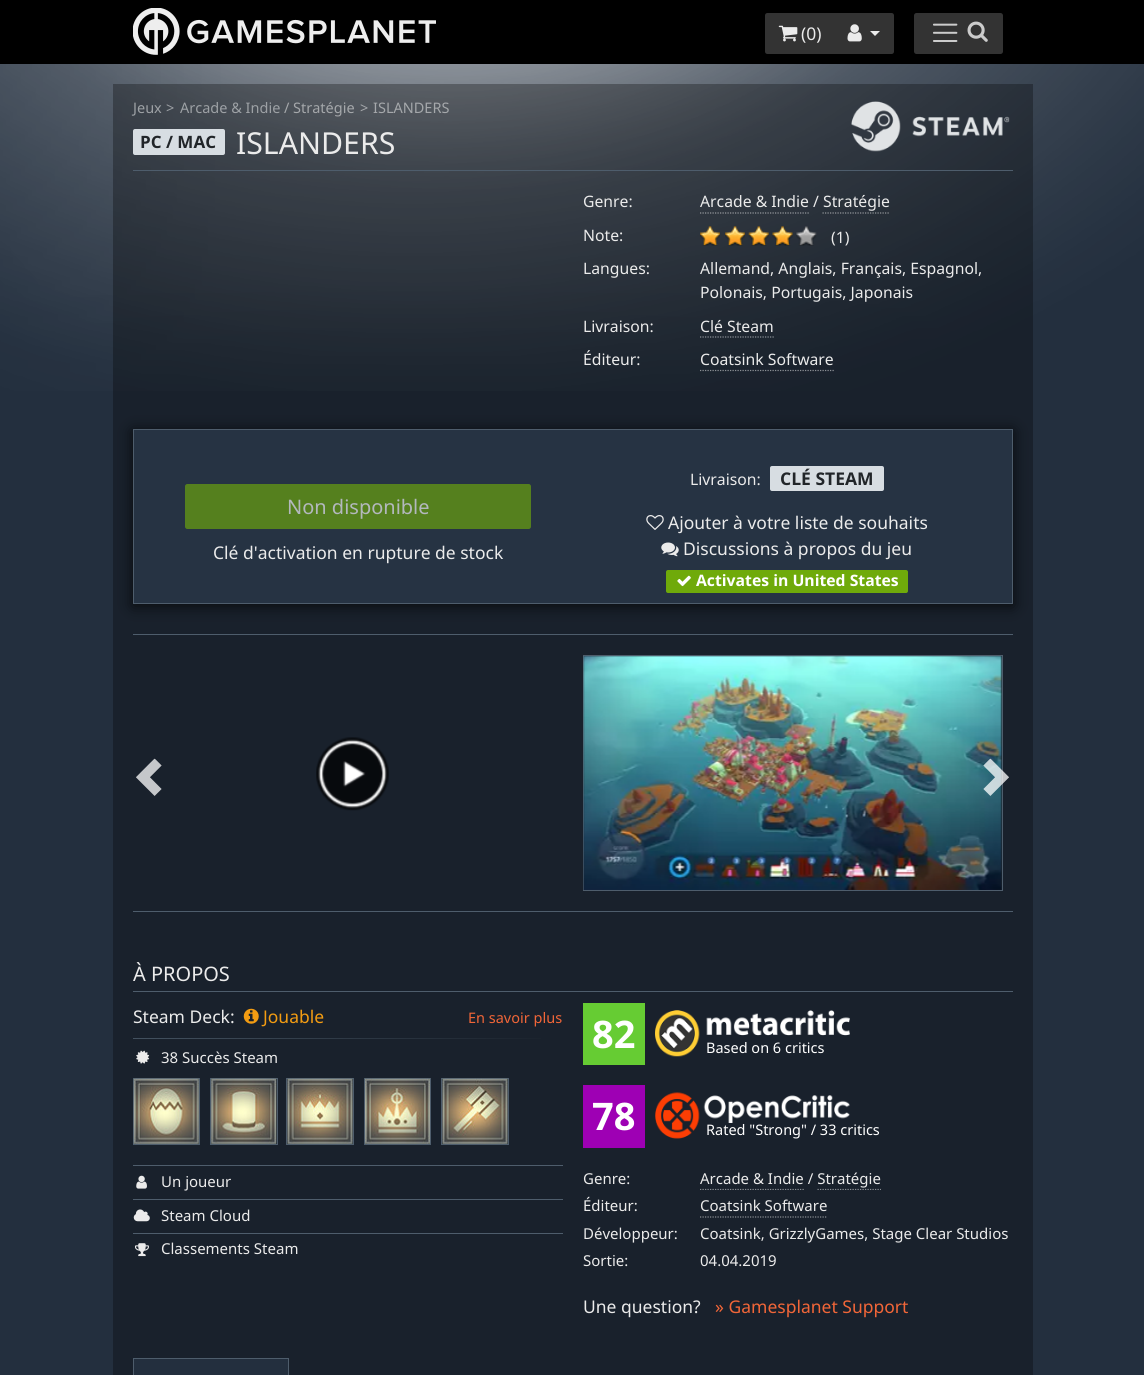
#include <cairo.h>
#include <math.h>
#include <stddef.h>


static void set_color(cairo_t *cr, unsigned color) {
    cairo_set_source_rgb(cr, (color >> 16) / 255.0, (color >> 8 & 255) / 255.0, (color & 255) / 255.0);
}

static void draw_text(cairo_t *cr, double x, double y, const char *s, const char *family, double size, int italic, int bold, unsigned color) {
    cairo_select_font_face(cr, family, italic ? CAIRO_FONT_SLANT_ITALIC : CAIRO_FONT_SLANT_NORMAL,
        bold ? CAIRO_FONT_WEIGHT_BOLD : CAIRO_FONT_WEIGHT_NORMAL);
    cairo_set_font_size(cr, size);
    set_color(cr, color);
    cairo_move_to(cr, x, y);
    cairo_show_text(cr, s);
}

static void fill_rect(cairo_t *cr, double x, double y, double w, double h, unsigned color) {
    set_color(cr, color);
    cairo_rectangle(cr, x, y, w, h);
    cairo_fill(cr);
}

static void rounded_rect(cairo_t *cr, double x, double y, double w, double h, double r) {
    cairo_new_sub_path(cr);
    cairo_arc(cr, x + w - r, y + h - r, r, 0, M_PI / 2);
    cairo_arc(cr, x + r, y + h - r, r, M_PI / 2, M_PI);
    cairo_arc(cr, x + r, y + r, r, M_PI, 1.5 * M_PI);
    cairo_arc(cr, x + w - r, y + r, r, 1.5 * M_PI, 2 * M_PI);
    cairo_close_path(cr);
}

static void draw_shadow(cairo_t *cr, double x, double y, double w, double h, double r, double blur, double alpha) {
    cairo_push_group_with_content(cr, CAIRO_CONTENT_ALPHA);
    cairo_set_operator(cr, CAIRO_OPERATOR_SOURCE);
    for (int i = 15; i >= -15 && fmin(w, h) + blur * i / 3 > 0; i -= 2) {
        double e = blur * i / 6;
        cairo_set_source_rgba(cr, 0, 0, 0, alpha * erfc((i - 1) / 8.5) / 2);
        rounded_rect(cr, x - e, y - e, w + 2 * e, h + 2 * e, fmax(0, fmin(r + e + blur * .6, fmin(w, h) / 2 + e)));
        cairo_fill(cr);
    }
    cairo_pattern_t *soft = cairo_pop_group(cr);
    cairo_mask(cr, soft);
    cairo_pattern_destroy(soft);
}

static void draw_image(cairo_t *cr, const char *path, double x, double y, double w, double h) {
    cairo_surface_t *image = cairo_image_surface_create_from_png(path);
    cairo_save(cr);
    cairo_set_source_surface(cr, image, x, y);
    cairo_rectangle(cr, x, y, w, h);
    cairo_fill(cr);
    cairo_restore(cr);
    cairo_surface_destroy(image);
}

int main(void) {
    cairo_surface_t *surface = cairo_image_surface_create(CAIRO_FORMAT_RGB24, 1144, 1375);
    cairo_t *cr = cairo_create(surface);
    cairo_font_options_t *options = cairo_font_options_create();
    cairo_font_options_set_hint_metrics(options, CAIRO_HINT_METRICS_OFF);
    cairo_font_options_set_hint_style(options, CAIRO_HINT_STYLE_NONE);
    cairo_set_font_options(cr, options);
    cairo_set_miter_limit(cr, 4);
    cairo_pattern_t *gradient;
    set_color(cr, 0x232F3E);
    cairo_paint(cr);
    draw_image(cr, "assets/img1.png", 0, 64, 1144, 327);
    fill_rect(cr, 0, 0, 1144, 64, 0x000000);
    draw_image(cr, "assets/img2.png", 133, 8, 303, 47);
    set_color(cr, 0x333333);
    cairo_new_path(cr);
    cairo_move_to(cr, 767.5, 13);
    cairo_line_to(cr, 835, 13);
    cairo_line_to(cr, 835, 54);
    cairo_line_to(cr, 767.5, 54);
    cairo_curve_to(cr, 766, 54, 765, 53, 765, 51.5);
    cairo_line_to(cr, 765, 15.5);
    cairo_curve_to(cr, 765, 14, 766, 13, 767.5, 13);
    cairo_close_path(cr);
    cairo_fill(cr);
    draw_image(cr, "assets/img3.png", 778, 25, 20, 17);
    draw_text(cr, 801, 40, "(0)", "Noto Sans", 17.5, 0, 0, 0xEBEBEB);
    set_color(cr, 0x333333);
    cairo_new_path(cr);
    cairo_move_to(cr, 834, 13);
    cairo_line_to(cr, 891.5, 13);
    cairo_curve_to(cr, 893, 13, 894, 14, 894, 15.5);
    cairo_line_to(cr, 894, 51.5);
    cairo_curve_to(cr, 894, 53, 893, 54, 891.5, 54);
    cairo_line_to(cr, 834, 54);
    cairo_close_path(cr);
    cairo_fill(cr);
    draw_image(cr, "assets/img4.png", 847, 24, 15, 18);
    set_color(cr, 0xEBEBEB);
    cairo_new_path(cr);
    cairo_move_to(cr, 870, 31);
    cairo_line_to(cr, 880, 31);
    cairo_line_to(cr, 875, 36);
    cairo_close_path(cr);
    cairo_fill(cr);
    set_color(cr, 0x333333);
    rounded_rect(cr, 914, 13, 89, 41, 2.5);
    cairo_fill(cr);
    draw_image(cr, "assets/img5.png", 933, 23, 25, 19);
    draw_image(cr, "assets/img6.png", 967, 21, 21, 21);
    cairo_set_source_rgba(cr, 0, 0, 0, 0.3);
    cairo_rectangle(cr, 113, 84, 920, 1291);
    cairo_fill(cr);
    draw_text(cr, 133, 113, "Jeux", "Noto Sans", 14.5, 0, 0, 0x9DA1A5);
    draw_text(cr, 166, 113, ">", "Noto Sans", 14.5, 0, 0, 0x9DA1A5);
    draw_text(cr, 180, 113, "Arcade & Indie", "Noto Sans", 14.5, 0, 0, 0x9DA1A5);
    draw_text(cr, 284, 113, "/", "Noto Sans", 14.5, 0, 0, 0xA5A8AB);
    draw_text(cr, 293, 113, "Stratégie", "Noto Sans", 14.5, 0, 0, 0xA5A8AB);
    draw_text(cr, 360, 113, ">", "Noto Sans", 14.5, 0, 0, 0xA5A8AB);
    draw_text(cr, 373, 113, "ISLANDERS", "Noto Sans", 14.5, 0, 0, 0xA5A8AB);
    set_color(cr, 0xD7DDE2);
    rounded_rect(cr, 133, 129, 92, 26, 2);
    cairo_fill(cr);
    draw_text(cr, 140, 148, "PC / MAC", "Noto Sans", 17, 0, 1, 0x212529);
    fill_rect(cr, 133, 170, 880, 1, 0x4E5D6C);
    draw_text(cr, 236, 154, "ISLANDERS", "Noto Sans", 30.25, 0, 0, 0xEBEBEB);
    draw_image(cr, "assets/img7.png", 851, 101, 159, 51);
    draw_text(cr, 583, 207, "Genre:", "Noto Sans", 15.75, 0, 0, 0xEBEBEB);
    draw_text(cr, 700, 207, "Arcade & Indie / Stratégie", "Noto Sans", 15.75, 0, 0, 0xEBEBEB);
    cairo_new_path(cr);
    cairo_move_to(cr, 700, 213);
    cairo_line_to(cr, 809, 213);
    cairo_set_source_rgba(cr, 1, 1, 1, 0.5);
    cairo_set_line_width(cr, 1.2);
    cairo_set_dash(cr, (double[]){1.25, 1.25}, 2, 0);
    cairo_stroke(cr);
    cairo_new_path(cr);
    cairo_move_to(cr, 822.5, 213);
    cairo_line_to(cr, 890, 213);
    cairo_stroke(cr);
    draw_text(cr, 583, 241, "Note:", "Noto Sans", 15.75, 0, 0, 0xEBEBEB);
    draw_image(cr, "assets/img8.png", 700, 226, 20, 20);
    draw_image(cr, "assets/img9.png", 725, 226, 20, 20);
    draw_image(cr, "assets/img10.png", 748, 226, 21, 20);
    draw_image(cr, "assets/img11.png", 772, 226, 21, 20);
    draw_image(cr, "assets/img12.png", 796, 226, 21, 20);
    draw_text(cr, 831, 243, "(1)", "Noto Sans", 15.75, 0, 0, 0xEBEBEB);
    draw_text(cr, 583, 274, "Langues:", "Noto Sans", 15.75, 0, 0, 0xEBEBEB);
    draw_text(cr, 700, 274, "Allemand, Anglais, Français, Espagnol,", "Noto Sans", 15.75, 0, 0, 0xEBEBEB);
    draw_text(cr, 700, 298, "Polonais, Portugais, Japonais", "Noto Sans", 15.75, 0, 0, 0xEBEBEB);
    draw_text(cr, 583, 332, "Livraison:", "Noto Sans", 15.75, 0, 0, 0xEBEBEB);
    draw_text(cr, 700, 332, "Clé Steam", "Noto Sans", 15.75, 0, 0, 0xEBEBEB);
    cairo_new_path(cr);
    cairo_move_to(cr, 700, 337);
    cairo_line_to(cr, 774, 337);
    set_color(cr, 0x8F9398);
    cairo_stroke(cr);
    draw_text(cr, 583, 365, "Éditeur:", "Noto Sans", 15.75, 0, 0, 0xEBEBEB);
    draw_text(cr, 700, 365, "Coatsink Software", "Noto Sans", 15.75, 0, 0, 0xEBEBEB);
    cairo_new_path(cr);
    cairo_move_to(cr, 700, 370.5);
    cairo_line_to(cr, 834, 370.5);
    set_color(cr, 0x8D9196);
    cairo_stroke(cr);
    set_color(cr, 0x000000);
    draw_shadow(cr, 133, 431, 880, 175, 0, 7.5, 0.75);
    set_color(cr, 0x263343);
    cairo_rectangle(cr, 133.5, 429.5, 879, 174);
    cairo_fill_preserve(cr);
    set_color(cr, 0x4E5D6C);
    cairo_set_line_width(cr, 1);
    cairo_set_dash(cr, NULL, 0, 0);
    cairo_stroke(cr);
    set_color(cr, 0x55801E);
    rounded_rect(cr, 185.5, 484.5, 345, 44, 2);
    cairo_fill_preserve(cr);
    cairo_stroke(cr);
    draw_text(cr, 287, 514, "Non disponible", "Noto Sans", 20, 0, 0, 0xB3B8BD);
    draw_text(cr, 213, 559, "Clé d'activation en rupture de stock", "Noto Sans", 17.5, 0, 0, 0xEBEBEB);
    draw_text(cr, 690, 485, "Livraison:", "Noto Sans", 15.75, 0, 0, 0xEBEBEB);
    set_color(cr, 0xD7DDE2);
    rounded_rect(cr, 770, 466, 114, 25, 2);
    cairo_fill(cr);
    draw_text(cr, 780, 485, "CLÉ STEAM", "Noto Sans", 17.5, 0, 1, 0x212529);
    draw_image(cr, "assets/img13.png", 646, 515, 18, 15);
    draw_text(cr, 668, 529, "Ajouter à votre liste de souhaits", "Noto Sans", 17.5, 0, 0, 0xEBEBEB);
    draw_image(cr, "assets/img14.png", 661, 542, 18, 15);
    draw_text(cr, 683, 555, "Discussions à propos du jeu", "Noto Sans", 17.5, 0, 0, 0xEBEBEB);
    set_color(cr, 0x6FAA0A);
    rounded_rect(cr, 666, 570, 242, 23, 2);
    cairo_fill(cr);
    draw_image(cr, "assets/img15.png", 677, 575, 14, 12);
    draw_text(cr, 696, 586, "Activates in United States", "Noto Sans", 15.75, 0, 1, 0xFFFFFF);
    fill_rect(cr, 133, 634, 880, 1, 0x4E5D6C);
    fill_rect(cr, 133, 911, 880, 1, 0x4E5D6C);
    draw_image(cr, "assets/img16.png", 136, 758, 26, 38);
    draw_image(cr, "assets/img17.png", 316, 737, 73, 74);
    cairo_rectangle(cr, 583.5, 655.5, 419, 235);
    cairo_stroke(cr);
    draw_image(cr, "assets/img18.png", 583, 656, 419, 234);
    draw_image(cr, "assets/img19.png", 983, 758, 26, 38);
    fill_rect(cr, 133, 991, 880, 1, 0x4E5D6C);
    draw_text(cr, 133, 981, "À PROPOS", "Noto Sans", 20, 0, 0, 0xEBEBEB);
    draw_text(cr, 133, 1023, "Steam Deck:", "Noto Sans", 17.5, 0, 0, 0xEBEBEB);
    draw_image(cr, "assets/img20.png", 243, 1008, 16, 16);
    draw_text(cr, 263, 1023, "Jouable", "Noto Sans", 17.5, 0, 0, 0xF39C12);
    draw_text(cr, 468, 1023, "En savoir plus", "Noto Sans", 14.5, 0, 0, 0xF26638);
    gradient = cairo_pattern_create_linear(133, 1038, 563, 1038);
    cairo_pattern_add_color_stop_rgba(gradient, 0, 0.263, 0.318, 0.373, 1);
    cairo_pattern_add_color_stop_rgba(gradient, 1, 0.098, 0.129, 0.169, 1);
    cairo_set_source(cr, gradient);
    cairo_pattern_destroy(gradient);
    cairo_rectangle(cr, 133, 1038, 408, 1);
    cairo_fill(cr);
    draw_image(cr, "assets/img21.png", 136, 1050, 14, 14);
    draw_text(cr, 161, 1063, "38 Succès Steam", "Noto Sans", 15, 0, 0, 0xEBEBEB);
    cairo_rectangle(cr, 133.5, 1078.5, 66, 66);
    set_color(cr, 0x4E5D6C);
    cairo_stroke(cr);
    draw_image(cr, "assets/img22.png", 133, 1078, 66, 66);
    cairo_rectangle(cr, 210.5, 1078.5, 67, 66);
    cairo_stroke(cr);
    draw_image(cr, "assets/img23.png", 211, 1078, 66, 66);
    cairo_rectangle(cr, 286.5, 1078.5, 67, 66);
    cairo_stroke(cr);
    draw_image(cr, "assets/img24.png", 287, 1078, 66, 66);
    cairo_rectangle(cr, 364.5, 1078.5, 66, 66);
    cairo_stroke(cr);
    draw_image(cr, "assets/img25.png", 365, 1078, 65, 66);
    cairo_rectangle(cr, 441.5, 1078.5, 67, 66);
    cairo_stroke(cr);
    draw_image(cr, "assets/img26.png", 442, 1078, 66, 66);
    fill_rect(cr, 133, 1165, 430, 1, 0x4E5D6C);
    draw_image(cr, "assets/img27.png", 136, 1175, 11, 14);
    draw_text(cr, 161, 1187, "Un joueur", "Noto Sans", 15, 0, 0, 0xEBEBEB);
    fill_rect(cr, 133, 1199, 430, 1, 0x4E5D6C);
    draw_image(cr, "assets/img28.png", 133, 1209, 17, 13);
    draw_text(cr, 161, 1221, "Steam Cloud", "Noto Sans", 15, 0, 0, 0xEBEBEB);
    fill_rect(cr, 133, 1233, 430, 1, 0x4E5D6C);
    draw_image(cr, "assets/img29.png", 135, 1243, 14, 14);
    draw_text(cr, 161, 1254, "Classements Steam", "Noto Sans", 15, 0, 0, 0xEBEBEB);
    fill_rect(cr, 583, 1003, 62, 62, 0x66CC33);
    draw_text(cr, 592, 1048, "82", "Noto Sans", 38, 0, 1, 0xFFFFFF);
    draw_image(cr, "assets/img30.png", 655, 1010, 195, 47);
    draw_text(cr, 706, 1053, "Based on 6 critics", "Noto Sans", 14.5, 0, 0, 0xFFFFFF);
    fill_rect(cr, 583, 1085, 62, 63, 0x9E00B4);
    draw_text(cr, 592, 1130, "78", "Noto Sans", 38, 0, 1, 0xFFFFFF);
    draw_image(cr, "assets/img31.png", 655, 1092, 195, 47);
    draw_text(cr, 706, 1135, "Rated \"Strong\" / 33 critics", "Noto Sans", 14.5, 0, 0, 0xFFFFFF);
    draw_text(cr, 583, 1184, "Genre:", "Noto Sans", 15, 0, 0, 0xEBEBEB);
    draw_text(cr, 700, 1184, "Arcade & Indie / Stratégie", "Noto Sans", 15, 0, 0, 0xEBEBEB);
    cairo_save(cr);
    cairo_rectangle(cr, 583, 1168, 430, 22);
    cairo_clip(cr);
    cairo_new_path(cr);
    cairo_move_to(cr, 700, 1189.5);
    cairo_line_to(cr, 804, 1189.5);
    set_color(cr, 0x8C9095);
    cairo_set_line_width(cr, 1.2);
    cairo_set_dash(cr, (double[]){1.25, 1.25}, 2, 0);
    cairo_stroke(cr);
    cairo_new_path(cr);
    cairo_move_to(cr, 817.5, 1189.5);
    cairo_line_to(cr, 881, 1189.5);
    cairo_stroke(cr);
    cairo_restore(cr);
    draw_text(cr, 583, 1211, "Éditeur:", "Noto Sans", 15, 0, 0, 0xEBEBEB);
    draw_text(cr, 700, 1211, "Coatsink Software", "Noto Sans", 15, 0, 0, 0xEBEBEB);
    cairo_new_path(cr);
    cairo_move_to(cr, 700, 1217);
    cairo_line_to(cr, 827.5, 1217);
    set_color(cr, 0x8C9095);
    cairo_set_line_width(cr, 1.2);
    cairo_set_dash(cr, (double[]){1.25, 1.25}, 2, 0);
    cairo_stroke(cr);
    draw_text(cr, 583, 1239, "Développeur:", "Noto Sans", 15, 0, 0, 0xEBEBEB);
    draw_text(cr, 700, 1239, "Coatsink, GrizzlyGames, Stage Clear Studios", "Noto Sans", 15, 0, 0, 0xEBEBEB);
    draw_text(cr, 583, 1266, "Sortie:", "Noto Sans", 15, 0, 0, 0xEBEBEB);
    draw_text(cr, 700, 1266, "04.04.2019", "Noto Sans", 15, 0, 0, 0xEBEBEB);
    draw_text(cr, 583, 1313, "Une question?", "Noto Sans", 17.5, 0, 0, 0xEBEBEB);
    draw_text(cr, 715, 1313, "» Gamesplanet Support", "Noto Sans", 17.5, 0, 0, 0xF26638);
    set_color(cr, 0x232F3E);
    cairo_rectangle(cr, 133.5, 1358.5, 155, 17);
    cairo_fill_preserve(cr);
    set_color(cr, 0x4E5D6C);
    cairo_set_line_width(cr, 1);
    cairo_set_dash(cr, NULL, 0, 0);
    cairo_stroke(cr);
    cairo_surface_write_to_png(surface, "output.png");
    cairo_font_options_destroy(options);
    cairo_destroy(cr);
    cairo_surface_destroy(surface);
    return 0;
}
